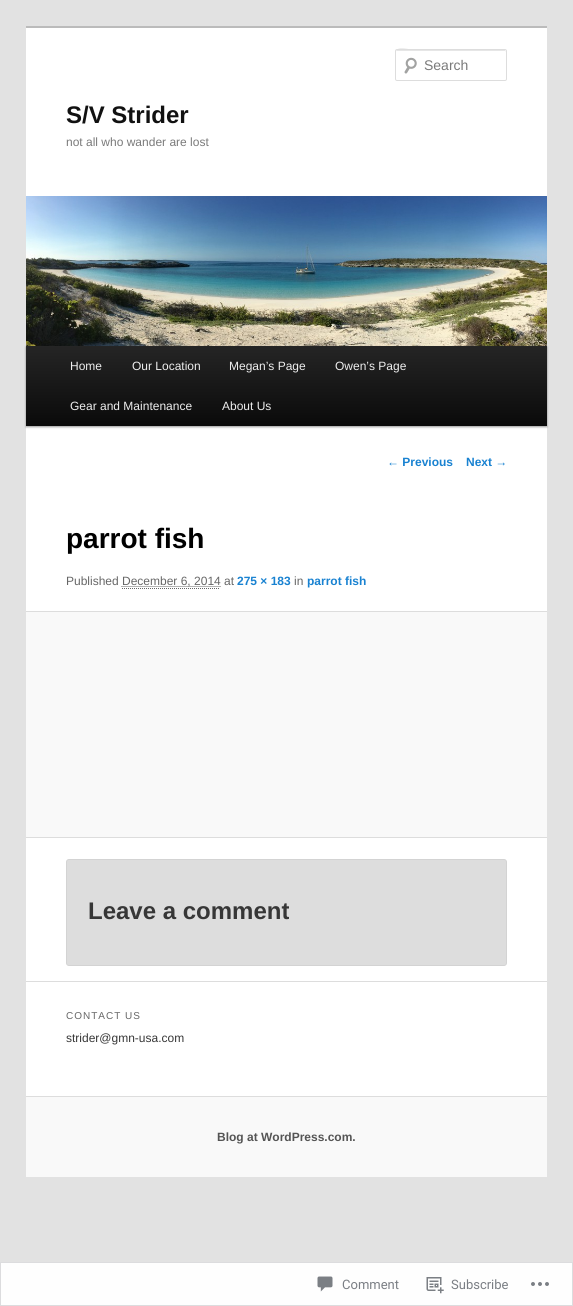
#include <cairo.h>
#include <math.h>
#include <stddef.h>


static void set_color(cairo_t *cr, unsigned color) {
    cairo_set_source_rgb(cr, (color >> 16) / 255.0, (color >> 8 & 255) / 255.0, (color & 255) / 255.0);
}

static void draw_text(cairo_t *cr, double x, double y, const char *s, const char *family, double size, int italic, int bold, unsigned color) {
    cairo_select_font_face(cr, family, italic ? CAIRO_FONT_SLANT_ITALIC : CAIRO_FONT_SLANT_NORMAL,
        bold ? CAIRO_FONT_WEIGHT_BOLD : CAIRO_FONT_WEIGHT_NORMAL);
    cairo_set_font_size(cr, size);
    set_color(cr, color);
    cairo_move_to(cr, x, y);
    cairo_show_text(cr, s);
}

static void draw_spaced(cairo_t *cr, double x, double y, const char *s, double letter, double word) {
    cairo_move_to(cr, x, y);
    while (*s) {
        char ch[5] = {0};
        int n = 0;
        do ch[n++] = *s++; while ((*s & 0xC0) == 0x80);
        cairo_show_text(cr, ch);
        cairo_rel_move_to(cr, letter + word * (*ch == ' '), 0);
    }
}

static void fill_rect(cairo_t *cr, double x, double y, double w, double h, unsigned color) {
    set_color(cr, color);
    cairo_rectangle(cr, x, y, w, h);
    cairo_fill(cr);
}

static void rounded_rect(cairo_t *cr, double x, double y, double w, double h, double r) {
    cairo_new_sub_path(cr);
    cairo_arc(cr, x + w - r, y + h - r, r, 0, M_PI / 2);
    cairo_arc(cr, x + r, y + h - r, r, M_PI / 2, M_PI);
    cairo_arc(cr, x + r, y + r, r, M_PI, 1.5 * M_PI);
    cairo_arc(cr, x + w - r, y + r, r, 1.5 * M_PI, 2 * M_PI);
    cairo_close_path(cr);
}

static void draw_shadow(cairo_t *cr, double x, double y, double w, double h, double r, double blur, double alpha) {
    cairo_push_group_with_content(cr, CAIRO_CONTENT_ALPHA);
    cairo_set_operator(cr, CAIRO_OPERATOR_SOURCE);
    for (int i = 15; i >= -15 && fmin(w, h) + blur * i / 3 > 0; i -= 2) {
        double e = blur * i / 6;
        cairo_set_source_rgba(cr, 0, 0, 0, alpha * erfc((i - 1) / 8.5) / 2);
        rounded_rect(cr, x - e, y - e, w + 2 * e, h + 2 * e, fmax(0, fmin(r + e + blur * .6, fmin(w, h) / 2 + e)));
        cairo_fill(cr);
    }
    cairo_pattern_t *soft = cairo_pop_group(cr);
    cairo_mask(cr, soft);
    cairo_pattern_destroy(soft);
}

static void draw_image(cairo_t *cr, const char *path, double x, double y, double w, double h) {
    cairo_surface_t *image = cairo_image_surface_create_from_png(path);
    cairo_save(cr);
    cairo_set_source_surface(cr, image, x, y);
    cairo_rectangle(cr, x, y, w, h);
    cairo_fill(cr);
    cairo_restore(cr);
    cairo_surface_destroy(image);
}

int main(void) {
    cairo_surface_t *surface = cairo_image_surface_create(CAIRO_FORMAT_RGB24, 573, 1306);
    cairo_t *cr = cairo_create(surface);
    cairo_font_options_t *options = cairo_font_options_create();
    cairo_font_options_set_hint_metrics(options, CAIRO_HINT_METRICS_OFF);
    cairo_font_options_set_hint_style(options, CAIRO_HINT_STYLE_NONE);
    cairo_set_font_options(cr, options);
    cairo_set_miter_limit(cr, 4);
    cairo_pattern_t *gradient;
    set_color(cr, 0xE2E2E2);
    cairo_paint(cr);
    fill_rect(cr, 26, 28, 521, 1068, 0xFFFFFF);
    fill_rect(cr, 26, 26, 521, 2, 0xBBBBBB);
    draw_image(cr, "assets/img1.png", 404, 57, 13, 17);
    set_color(cr, 0xE6E6E6);
    cairo_new_path(cr);
    cairo_move_to(cr, 397, 51);
    cairo_line_to(cr, 506, 51);
    cairo_line_to(cr, 506, 52);
    cairo_line_to(cr, 505, 50);
    cairo_line_to(cr, 415, 50);
    cairo_curve_to(cr, 411, 50, 396, 45, 396, 52);
    cairo_curve_to(cr, 396, 51, 396, 51, 397, 51);
    cairo_close_path(cr);
    cairo_fill(cr);
    rounded_rect(cr, 395.5, 49.5, 111, 31, 1.5);
    set_color(cr, 0xDDDDDD);
    cairo_set_line_width(cr, 1);
    cairo_stroke(cr);
    draw_text(cr, 424, 70, "Search", "Liberation Sans", 14, 0, 0, 0x7A7A7A);
    draw_text(cr, 66, 123, "S/V Strider", "Liberation Sans", 24, 0, 1, 0x111111);
    draw_text(cr, 66, 146, "not all who wander are lost", "Liberation Sans", 12, 0, 0, 0x7A7A7A);
    set_color(cr, 0x000000);
    draw_shadow(cr, 26, 347, 521, 80, 0, 1, 0.4);
    draw_image(cr, "assets/img2.png", 26, 196, 521, 150);
    gradient = cairo_pattern_create_linear(287, 346, 287, 426);
    cairo_pattern_add_color_stop_rgba(gradient, 0, 0.145, 0.145, 0.145, 1);
    cairo_pattern_add_color_stop_rgba(gradient, 1, 0.039, 0.039, 0.039, 1);
    cairo_set_source(cr, gradient);
    cairo_pattern_destroy(gradient);
    cairo_rectangle(cr, 26, 346, 521, 80);
    cairo_fill(cr);
    draw_text(cr, 70, 370, "Home", "Liberation Sans", 12, 0, 0, 0xEEEEEE);
    draw_text(cr, 132, 370, "Our Location", "Liberation Sans", 12, 0, 0, 0xEEEEEE);
    draw_text(cr, 229, 370, "Megan’s Page", "Liberation Sans", 12, 0, 0, 0xEEEEEE);
    draw_text(cr, 335, 370, "Owen’s Page", "Liberation Sans", 12, 0, 0, 0xEEEEEE);
    draw_text(cr, 70, 410, "Gear and Maintenance", "Liberation Sans", 12, 0, 0, 0xEEEEEE);
    draw_text(cr, 222, 410, "About Us", "Liberation Sans", 12, 0, 0, 0xEEEEEE);
    draw_text(cr, 387, 466, "← Previous", "Liberation Sans", 12, 0, 1, 0x1982D1);
    draw_text(cr, 466, 466, "Next →", "Liberation Sans", 12, 0, 1, 0x1982D1);
    draw_text(cr, 66, 548, "parrot fish", "Liberation Sans", 28, 0, 1, 0x000000);
    draw_text(cr, 66, 585, "Published", "Liberation Sans", 12, 0, 0, 0x666666);
    cairo_new_path(cr);
    cairo_move_to(cr, 121.5, 586.5);
    cairo_line_to(cr, 220.5, 586.5);
    cairo_set_dash(cr, (double[]){1, 1}, 2, 0);
    cairo_stroke(cr);
    draw_text(cr, 122, 585, "December 6, 2014 at", "Liberation Sans", 12, 0, 0, 0x666666);
    cairo_new_path(cr);
    cairo_move_to(cr, 122, 588.5);
    cairo_line_to(cr, 220, 588.5);
    cairo_stroke(cr);
    draw_text(cr, 237, 585, "275 × 183", "Liberation Sans", 12, 0, 1, 0x1982D1);
    draw_text(cr, 294, 585, "in", "Liberation Sans", 12, 0, 0, 0x666666);
    draw_text(cr, 307, 585, "parrot fish", "Liberation Sans", 12, 0, 1, 0x1982D1);
    fill_rect(cr, 26, 612, 521, 225, 0xF9F9F9);
    fill_rect(cr, 26, 611, 521, 1, 0xDDDDDD);
    fill_rect(cr, 26, 837, 521, 1, 0xDDDDDD);
    rounded_rect(cr, 66.5, 859.5, 440, 106, 2.5);
    cairo_fill_preserve(cr);
    set_color(cr, 0xD3D3D3);
    cairo_set_dash(cr, NULL, 0, 0);
    cairo_stroke(cr);
    draw_text(cr, 88, 919, "Leave a comment", "Liberation Sans", 24, 0, 1, 0x373737);
    fill_rect(cr, 26, 981, 521, 1, 0xDDDDDD);
    cairo_select_font_face(cr, "Liberation Sans", CAIRO_FONT_SLANT_NORMAL, CAIRO_FONT_WEIGHT_NORMAL);
    cairo_set_font_size(cr, 10);
    set_color(cr, 0x666666);
    draw_spaced(cr, 66, 1019, "CONTACT US", 1, 0);
    draw_text(cr, 66, 1042, "strider@gmn-usa.com", "Liberation Sans", 12, 0, 0, 0x373737);
    fill_rect(cr, 26, 1097, 521, 80, 0xF9F9F9);
    fill_rect(cr, 26, 1096, 521, 1, 0xDDDDDD);
    draw_text(cr, 217, 1141, "Blog at WordPress.com.", "Liberation Sans", 12, 0, 1, 0x555555);
    set_color(cr, 0xFEFEFE);
    cairo_rectangle(cr, 0.5, 1262.5, 572, 43);
    cairo_fill_preserve(cr);
    set_color(cr, 0xDCDCDE);
    cairo_stroke(cr);
    draw_image(cr, "assets/img3.png", 317, 1276, 16, 16);
    draw_text(cr, 342, 1289, "Comment", "Roboto", 13, 0, 0, 0x7A7E84);
    draw_image(cr, "assets/img4.png", 426, 1277, 18, 17);
    draw_text(cr, 451, 1289, "Subscribe", "Roboto", 13, 0, 0, 0x7A7E84);
    draw_image(cr, "assets/img5.png", 531, 1282, 18, 4);
    cairo_surface_write_to_png(surface, "output.png");
    cairo_font_options_destroy(options);
    cairo_destroy(cr);
    cairo_surface_destroy(surface);
    return 0;
}
